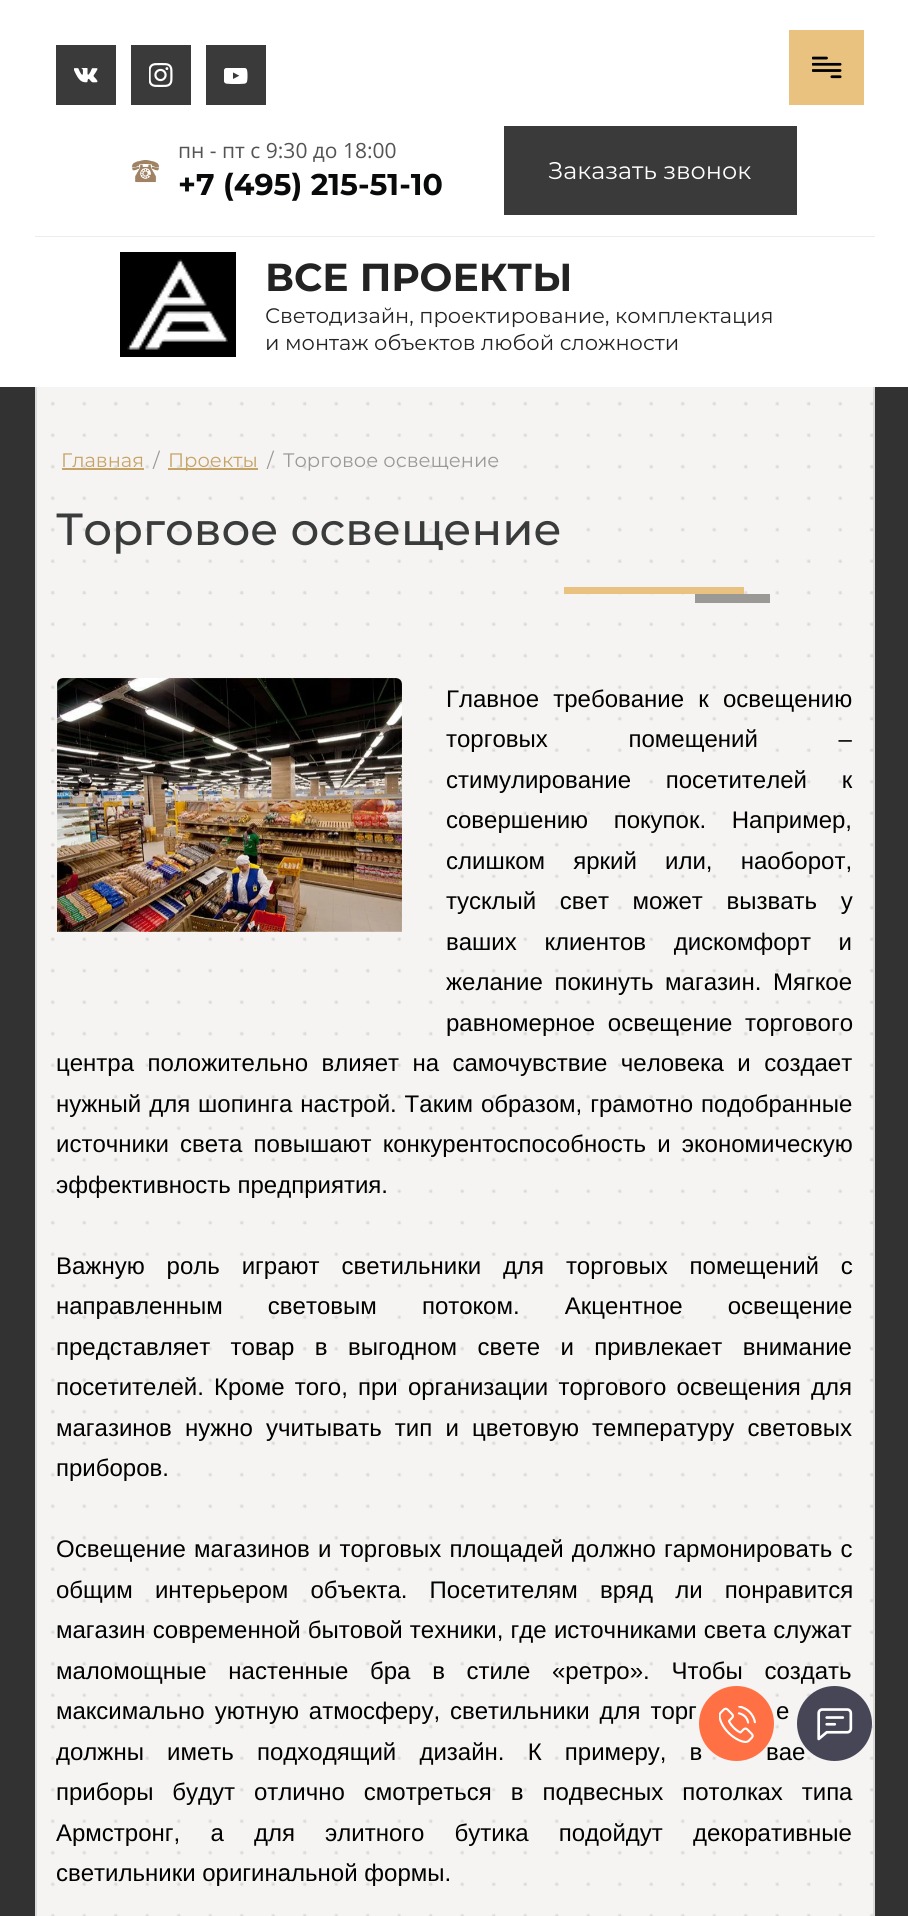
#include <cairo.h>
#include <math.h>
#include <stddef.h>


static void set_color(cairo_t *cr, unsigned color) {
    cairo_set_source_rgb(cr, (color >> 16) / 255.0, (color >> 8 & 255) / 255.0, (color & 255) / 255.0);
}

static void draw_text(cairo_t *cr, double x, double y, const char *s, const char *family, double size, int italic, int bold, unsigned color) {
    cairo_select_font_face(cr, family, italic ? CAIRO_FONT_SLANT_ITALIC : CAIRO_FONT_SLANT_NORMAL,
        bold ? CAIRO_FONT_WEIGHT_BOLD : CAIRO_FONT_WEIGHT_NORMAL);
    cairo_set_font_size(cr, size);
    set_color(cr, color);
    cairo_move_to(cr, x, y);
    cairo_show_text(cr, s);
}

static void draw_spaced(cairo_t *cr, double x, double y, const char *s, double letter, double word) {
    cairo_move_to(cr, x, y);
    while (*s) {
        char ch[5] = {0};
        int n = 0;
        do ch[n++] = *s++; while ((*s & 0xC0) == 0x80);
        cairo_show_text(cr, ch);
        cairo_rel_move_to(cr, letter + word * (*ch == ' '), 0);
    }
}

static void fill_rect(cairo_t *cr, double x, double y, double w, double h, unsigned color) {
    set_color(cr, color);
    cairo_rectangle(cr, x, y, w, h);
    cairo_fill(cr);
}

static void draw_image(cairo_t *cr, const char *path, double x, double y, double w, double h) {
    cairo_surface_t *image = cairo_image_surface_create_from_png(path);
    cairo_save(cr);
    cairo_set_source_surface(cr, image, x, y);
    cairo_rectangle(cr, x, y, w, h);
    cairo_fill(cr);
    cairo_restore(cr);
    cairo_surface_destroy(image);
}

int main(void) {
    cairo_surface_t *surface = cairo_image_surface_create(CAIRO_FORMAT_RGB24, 908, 1916);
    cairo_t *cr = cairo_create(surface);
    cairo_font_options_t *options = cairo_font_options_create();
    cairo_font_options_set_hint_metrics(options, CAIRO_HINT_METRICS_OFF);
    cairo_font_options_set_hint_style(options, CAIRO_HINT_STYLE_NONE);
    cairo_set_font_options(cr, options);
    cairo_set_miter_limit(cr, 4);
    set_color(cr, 0xFFFFFF);
    cairo_paint(cr);
    fill_rect(cr, 789, 30, 75, 75, 0xE9C280);
    draw_image(cr, "assets/img1.png", 812, 56, 30, 23);
    fill_rect(cr, 35, 236, 840, 1, 0xEBECEC);
    fill_rect(cr, 56, 45, 60, 60, 0x3A3A3A);
    draw_image(cr, "assets/img2.png", 74, 68, 24, 15);
    fill_rect(cr, 131, 45, 60, 60, 0x3A3A3A);
    draw_image(cr, "assets/img3.png", 149, 63, 24, 24);
    fill_rect(cr, 206, 45, 60, 60, 0x3A3A3A);
    draw_image(cr, "assets/img4.png", 224, 68, 24, 16);
    draw_image(cr, "assets/img5.png", 131, 160, 29, 23);
    draw_text(cr, 178, 158, "пн - пт с 9:30 до 18:00", "Open Sans", 21, 0, 0, 0x535454);
    draw_text(cr, 178, 195, "+7 (495) 215-51-10", "Montserrat", 30, 0, 1, 0x090A0B);
    fill_rect(cr, 504, 126, 293, 89, 0x3A3A3A);
    draw_text(cr, 548, 179, "Заказать звонок", "Montserrat", 24, 0, 0, 0xFFFFFF);
    fill_rect(cr, 120, 252, 116, 105, 0x000000);
    draw_image(cr, "assets/img6.png", 127, 259, 101, 91);
    draw_text(cr, 265, 291, "ВСЕ ПРОЕКТЫ", "Montserrat", 39, 0, 1, 0x232323);
    draw_text(cr, 265, 323, "Светодизайн, проектирование, комплектация", "Montserrat", 21, 0, 0, 0x232323);
    draw_text(cr, 265, 350, "и монтаж объектов любой сложности", "Montserrat", 21, 0, 0, 0x232323);
    fill_rect(cr, 0, 387, 908, 1529, 0x323232);
    draw_image(cr, "assets/img7.png", 37, 387, 836, 1529);
    fill_rect(cr, 873, 387, 2, 1529, 0xDBDBDB);
    fill_rect(cr, 35, 387, 2, 1529, 0xDBDBDB);
    draw_text(cr, 61, 467, "Главная", "Montserrat", 19.5, 0, 0, 0xC6A366);
    fill_rect(cr, 62, 468, 82, 2, 0xC6A366);
    draw_text(cr, 153, 467, "/", "Montserrat", 19.5, 0, 0, 0x9B9995);
    fill_rect(cr, 168, 468, 90, 2, 0xC6A366);
    draw_text(cr, 168, 467, "Проекты", "Montserrat", 19.5, 0, 0, 0xC6A366);
    draw_text(cr, 267, 467, "/", "Montserrat", 19.5, 0, 0, 0x9B9995);
    draw_text(cr, 283, 467, "Торговое освещение", "Montserrat", 19.5, 0, 0, 0x9B9995);
    draw_text(cr, 56, 545, "Торговое освещение", "Montserrat Medium", 45, 0, 0, 0x3A3C3C);
    fill_rect(cr, 564, 587, 180, 7, 0xE9C280);
    fill_rect(cr, 695, 594, 75, 9, 0x9B9995);
    draw_image(cr, "assets/img8.png", 57, 678, 345, 254);
    cairo_select_font_face(cr, "Liberation Sans", CAIRO_FONT_SLANT_NORMAL, CAIRO_FONT_WEIGHT_NORMAL);
    cairo_set_font_size(cr, 24);
    set_color(cr, 0x000000);
    draw_spaced(cr, 446, 707, "Главное требование к освещению", 0, 7.5);
    draw_spaced(cr, 446, 747, "торговых помещений –", 0, 74);
    draw_spaced(cr, 446, 788, "стимулирование посетителей к", 0, 28);
    draw_spaced(cr, 446, 828, "совершению покупок. Например,", 0, 19);
    draw_spaced(cr, 446, 869, "слишком яркий или, наоборот,", 0, 21.5);
    draw_spaced(cr, 446, 909, "тусклый свет может вызвать у", 0, 17);
    draw_spaced(cr, 446, 950, "ваших клиентов дискомфорт и", 0, 21);
    draw_spaced(cr, 446, 990, "желание покинуть магазин. Мягкое", 0, 5);
    draw_spaced(cr, 446, 1031, "равномерное освещение торгового", 0, 6);
    draw_spaced(cr, 56, 1071, "центра положительно влияет на самочувствие человека и создает", 0, 6.75);
    draw_spaced(cr, 56, 1112, "нужный для шопинга настрой. Таким образом, грамотно подобранные", 0, 1.25);
    draw_spaced(cr, 56, 1152, "источники света повышают конкурентоспособность и экономическую", 0, 4.5);
    draw_text(cr, 56, 1193, "эффективность предприятия.", "Liberation Sans", 24, 0, 0, 0x000000);
    draw_spaced(cr, 56, 1274, "Важную роль играют светильники для торговых помещений с", 0, 15.25);
    draw_spaced(cr, 56, 1314, "направленным световым потоком. Акцентное освещение", 0, 38.5);
    draw_spaced(cr, 56, 1355, "представляет товар в выгодном свете и привлекает внимание", 0, 13.75);
    draw_spaced(cr, 56, 1395, "посетителей. Кроме того, при организации торгового освещения для", 0, 3.5);
    draw_spaced(cr, 56, 1436, "магазинов нужно учитывать тип и цветовую температуру световых", 0, 6.5);
    draw_text(cr, 56, 1476, "приборов.", "Liberation Sans", 24, 0, 0, 0x000000);
    draw_spaced(cr, 56, 1557, "Освещение магазинов и торговых площадей должно гармонировать с", 0, 1.5);
    draw_spaced(cr, 56, 1598, "общим интерьером объекта. Посетителям вряд ли понравится", 0, 15.5);
    draw_spaced(cr, 56, 1638, "магазин современной бытовой техники, где источниками света служат", 0, 0.5);
    draw_spaced(cr, 56, 1679, "маломощные настенные бра в стиле «ретро». Чтобы создать", 0, 15);
    draw_spaced(cr, 56, 1719, "максимально уютную атмосферу, светильники для торг", 0, 3.25);
    draw_spaced(cr, 776, 1719, "е", 0, 3.25);
    draw_spaced(cr, 56, 1760, "должны иметь подходящий дизайн. К примеру, в", 0, 16.5);
    draw_spaced(cr, 766, 1760, "вае", 0, 16.5);
    draw_spaced(cr, 56, 1800, "приборы будут отлично смотреться в подвесных потолках типа", 0, 12.25);
    draw_spaced(cr, 56, 1841, "Армстронг, а для элитного бутика подойдут декоративные", 0, 23.5);
    draw_text(cr, 56, 1881, "светильники оригинальной формы.", "Liberation Sans", 24, 0, 0, 0x000000);
    set_color(cr, 0xFF7044);
    cairo_new_path(cr);
    cairo_arc(cr, 736.5, 1723.5, 37.5, 0, 2 * M_PI);
    cairo_fill(cr);
    draw_image(cr, "assets/img9.png", 719, 1706, 37, 37);
    set_color(cr, 0x464657);
    cairo_arc(cr, 834.5, 1723.5, 37.5, 0, 2 * M_PI);
    cairo_fill(cr);
    draw_image(cr, "assets/img10.png", 817, 1708, 36, 33);
    cairo_surface_write_to_png(surface, "output.png");
    cairo_font_options_destroy(options);
    cairo_destroy(cr);
    cairo_surface_destroy(surface);
    return 0;
}
